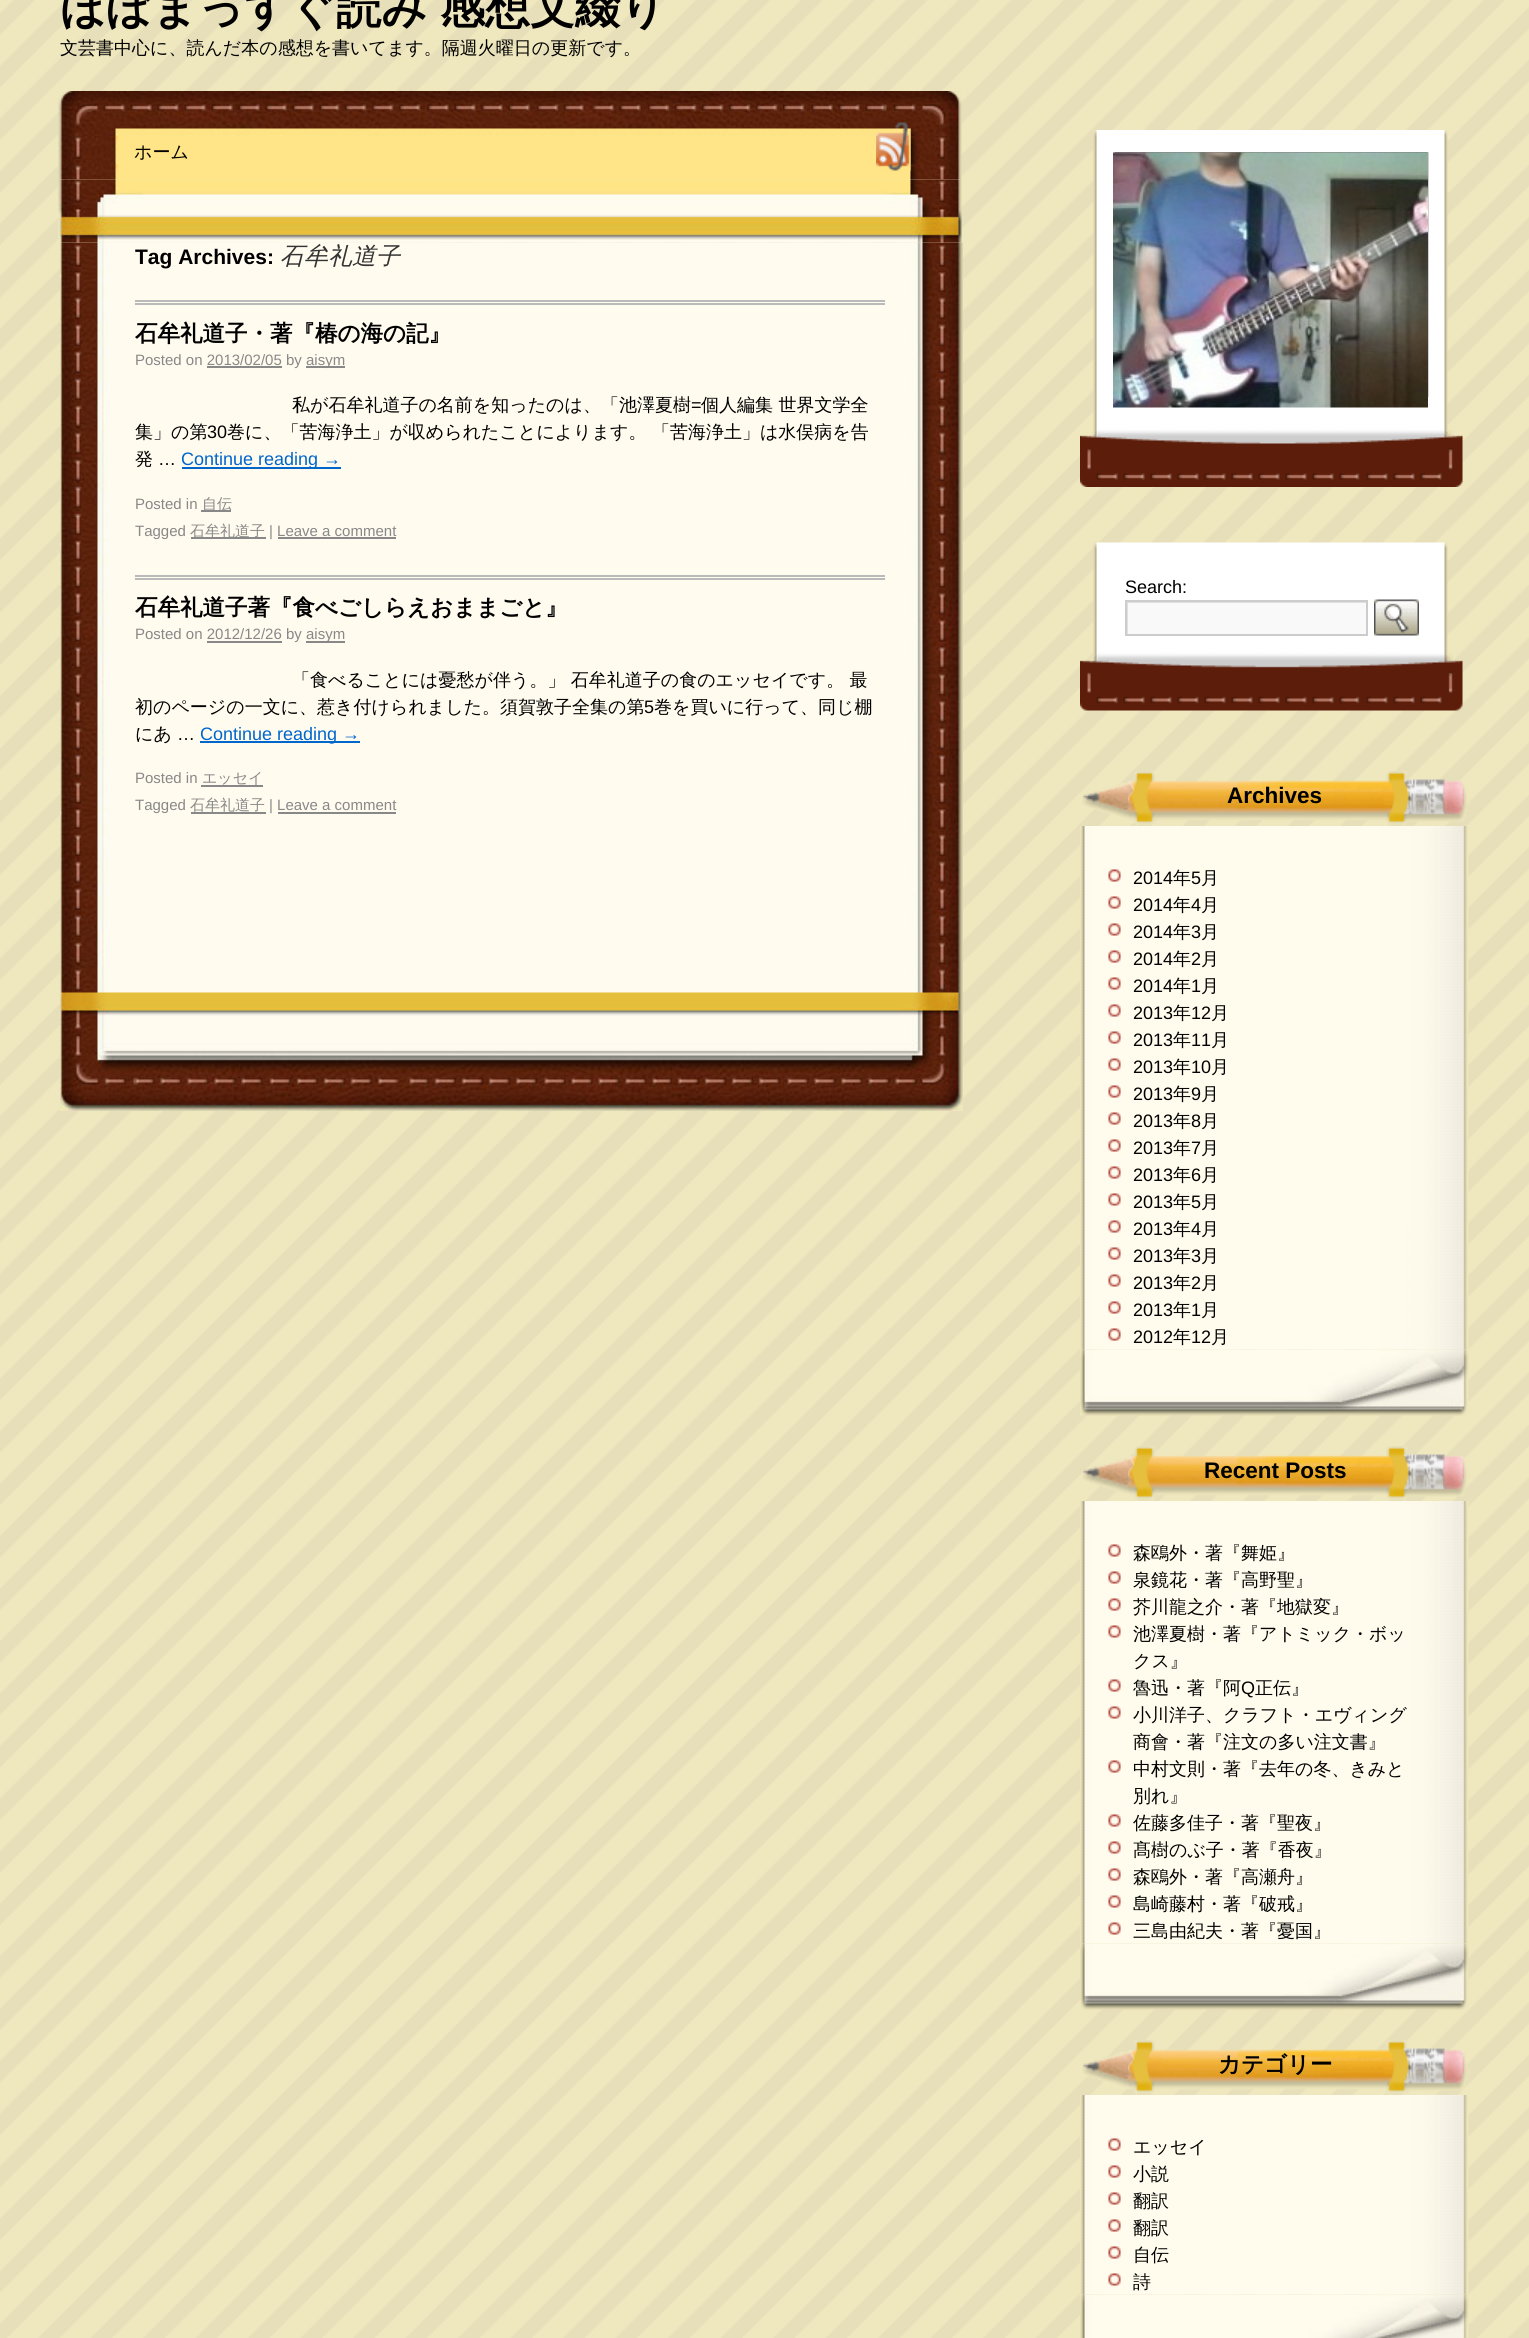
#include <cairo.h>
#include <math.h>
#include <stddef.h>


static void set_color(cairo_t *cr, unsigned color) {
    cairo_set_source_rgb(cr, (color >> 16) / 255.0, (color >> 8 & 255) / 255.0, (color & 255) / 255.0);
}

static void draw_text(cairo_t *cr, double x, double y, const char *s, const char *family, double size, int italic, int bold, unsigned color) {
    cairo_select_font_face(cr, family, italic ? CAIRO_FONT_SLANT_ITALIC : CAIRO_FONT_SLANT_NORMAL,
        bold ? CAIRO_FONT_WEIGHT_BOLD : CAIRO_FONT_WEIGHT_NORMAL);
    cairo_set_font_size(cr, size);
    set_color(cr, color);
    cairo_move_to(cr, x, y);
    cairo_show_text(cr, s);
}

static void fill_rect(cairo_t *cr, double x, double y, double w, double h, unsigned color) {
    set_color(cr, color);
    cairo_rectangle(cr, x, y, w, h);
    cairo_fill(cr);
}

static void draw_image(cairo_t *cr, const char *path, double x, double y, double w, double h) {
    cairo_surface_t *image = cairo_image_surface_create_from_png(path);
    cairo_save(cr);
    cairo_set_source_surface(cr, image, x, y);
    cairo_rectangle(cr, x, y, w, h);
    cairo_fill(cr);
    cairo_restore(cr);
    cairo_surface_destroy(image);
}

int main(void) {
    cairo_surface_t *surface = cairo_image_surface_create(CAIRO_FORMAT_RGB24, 1529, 2338);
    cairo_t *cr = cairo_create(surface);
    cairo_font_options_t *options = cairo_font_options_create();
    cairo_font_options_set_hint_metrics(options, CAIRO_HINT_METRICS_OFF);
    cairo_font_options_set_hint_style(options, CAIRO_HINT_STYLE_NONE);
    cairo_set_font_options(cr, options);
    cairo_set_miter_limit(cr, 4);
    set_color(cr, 0xFFFFFF);
    cairo_paint(cr);
    draw_image(cr, "assets/img1.png", 0, 0, 1529, 2338);
    draw_text(cr, 60, 23, "ほぼまっすぐ読み", "WenQuanYi Zen Hei", 45, 0, 1, 0x000000);
    draw_text(cr, 440, 23, "感想文綴り", "WenQuanYi Zen Hei", 45, 0, 1, 0x000000);
    draw_text(cr, 60, 54, "文芸書中心に、読んだ本の感想を書いてます。隔週火曜日の更新です。", "WenQuanYi Zen Hei Medium", 18, 0, 0, 0x000000);
    draw_image(cr, "assets/img2.png", 58, 91, 904, 45);
    draw_image(cr, "assets/img3.png", 58, 136, 904, 44);
    draw_text(cr, 134, 158, "ホーム", "WenQuanYi Zen Hei Medium", 18, 0, 0, 0x000000);
    draw_image(cr, "assets/img4.png", 876, 122, 35, 49);
    draw_image(cr, "assets/img6.png", 60, 242, 389, 1);
    draw_image(cr, "assets/img7.png", 60, 242, 903, 751);
    draw_image(cr, "assets/img5.png", 58, 179, 904, 64);
    draw_text(cr, 135, 264, "Tag Archives:", "Liberation Sans", 21, 0, 1, 0x000000);
    draw_text(cr, 280, 264, "石牟礼道子", "WenQuanYi Zen Hei Medium", 24, 1, 0, 0x333333);
    fill_rect(cr, 135, 300, 750, 2, 0xBABABA);
    fill_rect(cr, 135, 303, 750, 2, 0xBABABA);
    draw_text(cr, 135, 341, "石牟礼道子・著『椿の海の記』", "WenQuanYi Zen Hei", 22.5, 0, 1, 0x000000);
    draw_text(cr, 135, 365, "Posted on 2013/02/05 by", "Liberation Sans", 15, 0, 0, 0x888888);
    fill_rect(cr, 306, 366, 39, 2, 0x888888);
    draw_text(cr, 306, 365, "aisym", "Liberation Sans", 15, 0, 0, 0x888888);
    fill_rect(cr, 207, 366, 75, 2, 0x888888);
    draw_text(cr, 292, 411, "私が石牟礼道子の名前を知ったのは、「池澤夏樹", "WenQuanYi Zen Hei Medium", 18, 0, 0, 0x000000);
    draw_text(cr, 691, 411, "=", "Liberation Sans", 18, 0, 0, 0x000000);
    draw_text(cr, 701, 411, "個人編集 世界文学全", "WenQuanYi Zen Hei Medium", 18, 0, 0, 0x000000);
    draw_text(cr, 135, 438, "集」の第", "WenQuanYi Zen Hei Medium", 18, 0, 0, 0x000000);
    draw_text(cr, 207, 438, "30", "Liberation Sans", 18, 0, 0, 0x000000);
    draw_text(cr, 227, 438, "巻に、「苦海浄土」が収められたことによります。 「苦海浄土」は水俣病を告", "WenQuanYi Zen Hei Medium", 18, 0, 0, 0x000000);
    draw_text(cr, 135, 465, "発", "WenQuanYi Zen Hei Medium", 18, 0, 0, 0x000000);
    draw_text(cr, 158, 465, "…", "Liberation Sans", 18, 0, 0, 0x000000);
    fill_rect(cr, 182, 467, 159, 2, 0x0066CC);
    draw_text(cr, 181, 465, "Continue reading →", "Liberation Sans", 18, 0, 0, 0x0066CC);
    draw_text(cr, 135, 509, "Posted in", "Liberation Sans", 15, 0, 0, 0x888888);
    fill_rect(cr, 201, 510, 30, 2, 0x888888);
    draw_text(cr, 202, 509, "自伝", "WenQuanYi Zen Hei Medium", 15, 0, 0, 0x888888);
    draw_text(cr, 135, 536, "Tagged", "Liberation Sans", 15, 0, 0, 0x888888);
    fill_rect(cr, 191, 537, 75, 2, 0x888888);
    draw_text(cr, 190, 536, "石牟礼道子", "WenQuanYi Zen Hei Medium", 15, 0, 0, 0x888888);
    draw_text(cr, 269, 536, "| Leave a comment", "Liberation Sans", 15, 0, 0, 0x888888);
    fill_rect(cr, 278, 537, 118, 2, 0x888888);
    fill_rect(cr, 135, 575, 750, 2, 0xBABABA);
    fill_rect(cr, 135, 578, 750, 2, 0xBABABA);
    draw_text(cr, 135, 615, "石牟礼道子著『食べごしらえおままごと』", "WenQuanYi Zen Hei", 22.5, 0, 1, 0x000000);
    draw_text(cr, 135, 639, "Posted on 2012/12/26 by", "Liberation Sans", 15, 0, 0, 0x888888);
    fill_rect(cr, 306, 641, 39, 2, 0x888888);
    draw_text(cr, 306, 639, "aisym", "Liberation Sans", 15, 0, 0, 0x888888);
    fill_rect(cr, 207, 641, 75, 2, 0x888888);
    draw_text(cr, 292, 686, "「食べることには憂愁が伴う。」 石牟礼道子の食のエッセイです。 最", "WenQuanYi Zen Hei Medium", 18, 0, 0, 0x000000);
    draw_text(cr, 135, 713, "初のページの一文に、惹き付けられました。須賀敦子全集の第", "WenQuanYi Zen Hei Medium", 18, 0, 0, 0x000000);
    draw_text(cr, 644, 713, "5", "Liberation Sans", 18, 0, 0, 0x000000);
    draw_text(cr, 654, 713, "巻を買いに行って、同じ棚", "WenQuanYi Zen Hei Medium", 18, 0, 0, 0x000000);
    draw_text(cr, 135, 740, "にあ", "WenQuanYi Zen Hei Medium", 18, 0, 0, 0x000000);
    draw_text(cr, 177, 740, "…", "Liberation Sans", 18, 0, 0, 0x000000);
    fill_rect(cr, 200, 741, 160, 2, 0x0066CC);
    draw_text(cr, 200, 740, "Continue reading →", "Liberation Sans", 18, 0, 0, 0x0066CC);
    draw_text(cr, 135, 783, "Posted in", "Liberation Sans", 15, 0, 0, 0x888888);
    draw_text(cr, 202, 783, "エッセイ", "WenQuanYi Zen Hei Medium", 15, 0, 0, 0x888888);
    fill_rect(cr, 201, 785, 62, 2, 0x888888);
    draw_text(cr, 135, 810, "Tagged", "Liberation Sans", 15, 0, 0, 0x888888);
    fill_rect(cr, 191, 812, 75, 2, 0x888888);
    draw_text(cr, 190, 810, "石牟礼道子", "WenQuanYi Zen Hei Medium", 15, 0, 0, 0x888888);
    draw_text(cr, 269, 810, "| Leave a comment", "Liberation Sans", 15, 0, 0, 0x888888);
    fill_rect(cr, 278, 812, 118, 2, 0x888888);
    draw_image(cr, "assets/img8.png", 60, 992, 903, 119);
    draw_image(cr, "assets/img9.png", 1080, 130, 383, 357);
    draw_image(cr, "assets/img10.png", 1113, 152, 315, 256);
    draw_image(cr, "assets/img11.png", 1080, 542, 383, 169);
    draw_text(cr, 1125, 593, "Search:", "Liberation Sans", 18, 0, 0, 0x000000);
    fill_rect(cr, 1128, 603, 238, 31, 0xF9F9F9);
    cairo_save(cr);
    cairo_rectangle(cr, 1127, 602, 240, 33);
    cairo_clip(cr);
    set_color(cr, 0xE0E0E0);
    cairo_set_fill_rule(cr, CAIRO_FILL_RULE_EVEN_ODD);
    cairo_new_path(cr);
    cairo_move_to(cr, 978, 453);
    cairo_line_to(cr, 1515, 453);
    cairo_line_to(cr, 1515, 783);
    cairo_line_to(cr, 978, 783);
    cairo_close_path(cr);
    cairo_move_to(cr, 1128, 603);
    cairo_line_to(cr, 1368, 603);
    cairo_line_to(cr, 1368, 636);
    cairo_line_to(cr, 1128, 636);
    cairo_close_path(cr);
    cairo_fill(cr);
    cairo_restore(cr);
    cairo_rectangle(cr, 1126, 601, 241, 34);
    set_color(cr, 0xCCCCCC);
    cairo_stroke(cr);
    draw_image(cr, "assets/img12.png", 1374, 599, 45, 37);
    draw_image(cr, "assets/img13.png", 1082, 771, 388, 55);
    draw_text(cr, 1227, 803, "Archives", "Liberation Sans", 22.5, 0, 1, 0x000000);
    draw_image(cr, "assets/img14.png", 1080, 826, 389, 524);
    draw_image(cr, "assets/img15.png", 1108, 869, 13, 13);
    draw_text(cr, 1133, 884, "2014", "Liberation Sans", 18, 0, 0, 0x000000);
    draw_text(cr, 1173, 884, "年", "WenQuanYi Zen Hei Medium", 18, 0, 0, 0x000000);
    draw_text(cr, 1191, 884, "5", "Liberation Sans", 18, 0, 0, 0x000000);
    draw_text(cr, 1201, 884, "月", "WenQuanYi Zen Hei Medium", 18, 0, 0, 0x000000);
    draw_image(cr, "assets/img15.png", 1108, 896, 13, 13);
    draw_text(cr, 1133, 911, "2014", "Liberation Sans", 18, 0, 0, 0x000000);
    draw_text(cr, 1173, 911, "年", "WenQuanYi Zen Hei Medium", 18, 0, 0, 0x000000);
    draw_text(cr, 1191, 911, "4", "Liberation Sans", 18, 0, 0, 0x000000);
    draw_text(cr, 1201, 911, "月", "WenQuanYi Zen Hei Medium", 18, 0, 0, 0x000000);
    draw_image(cr, "assets/img15.png", 1108, 923, 13, 13);
    draw_text(cr, 1133, 938, "2014", "Liberation Sans", 18, 0, 0, 0x000000);
    draw_text(cr, 1173, 938, "年", "WenQuanYi Zen Hei Medium", 18, 0, 0, 0x000000);
    draw_text(cr, 1191, 938, "3", "Liberation Sans", 18, 0, 0, 0x000000);
    draw_text(cr, 1201, 938, "月", "WenQuanYi Zen Hei Medium", 18, 0, 0, 0x000000);
    draw_image(cr, "assets/img15.png", 1108, 950, 13, 13);
    draw_text(cr, 1133, 965, "2014", "Liberation Sans", 18, 0, 0, 0x000000);
    draw_text(cr, 1173, 965, "年", "WenQuanYi Zen Hei Medium", 18, 0, 0, 0x000000);
    draw_text(cr, 1191, 965, "2", "Liberation Sans", 18, 0, 0, 0x000000);
    draw_text(cr, 1201, 965, "月", "WenQuanYi Zen Hei Medium", 18, 0, 0, 0x000000);
    draw_image(cr, "assets/img15.png", 1108, 977, 13, 13);
    draw_text(cr, 1133, 992, "2014", "Liberation Sans", 18, 0, 0, 0x000000);
    draw_text(cr, 1173, 992, "年", "WenQuanYi Zen Hei Medium", 18, 0, 0, 0x000000);
    draw_text(cr, 1191, 992, "1", "Liberation Sans", 18, 0, 0, 0x000000);
    draw_text(cr, 1201, 992, "月", "WenQuanYi Zen Hei Medium", 18, 0, 0, 0x000000);
    draw_image(cr, "assets/img15.png", 1108, 1004, 13, 13);
    draw_text(cr, 1133, 1019, "2013", "Liberation Sans", 18, 0, 0, 0x000000);
    draw_text(cr, 1173, 1019, "年", "WenQuanYi Zen Hei Medium", 18, 0, 0, 0x000000);
    draw_text(cr, 1191, 1019, "12", "Liberation Sans", 18, 0, 0, 0x000000);
    draw_text(cr, 1211, 1019, "月", "WenQuanYi Zen Hei Medium", 18, 0, 0, 0x000000);
    draw_image(cr, "assets/img15.png", 1108, 1031, 13, 13);
    draw_text(cr, 1133, 1046, "2013", "Liberation Sans", 18, 0, 0, 0x000000);
    draw_text(cr, 1173, 1046, "年", "WenQuanYi Zen Hei Medium", 18, 0, 0, 0x000000);
    draw_text(cr, 1191, 1046, "11", "Liberation Sans", 18, 0, 0, 0x000000);
    draw_text(cr, 1211, 1046, "月", "WenQuanYi Zen Hei Medium", 18, 0, 0, 0x000000);
    draw_image(cr, "assets/img15.png", 1108, 1058, 13, 13);
    draw_text(cr, 1133, 1073, "2013", "Liberation Sans", 18, 0, 0, 0x000000);
    draw_text(cr, 1173, 1073, "年", "WenQuanYi Zen Hei Medium", 18, 0, 0, 0x000000);
    draw_text(cr, 1191, 1073, "10", "Liberation Sans", 18, 0, 0, 0x000000);
    draw_text(cr, 1211, 1073, "月", "WenQuanYi Zen Hei Medium", 18, 0, 0, 0x000000);
    draw_image(cr, "assets/img15.png", 1108, 1085, 13, 13);
    draw_text(cr, 1133, 1100, "2013", "Liberation Sans", 18, 0, 0, 0x000000);
    draw_text(cr, 1173, 1100, "年", "WenQuanYi Zen Hei Medium", 18, 0, 0, 0x000000);
    draw_text(cr, 1191, 1100, "9", "Liberation Sans", 18, 0, 0, 0x000000);
    draw_text(cr, 1201, 1100, "月", "WenQuanYi Zen Hei Medium", 18, 0, 0, 0x000000);
    draw_image(cr, "assets/img15.png", 1108, 1112, 13, 13);
    draw_text(cr, 1133, 1127, "2013", "Liberation Sans", 18, 0, 0, 0x000000);
    draw_text(cr, 1173, 1127, "年", "WenQuanYi Zen Hei Medium", 18, 0, 0, 0x000000);
    draw_text(cr, 1191, 1127, "8", "Liberation Sans", 18, 0, 0, 0x000000);
    draw_text(cr, 1201, 1127, "月", "WenQuanYi Zen Hei Medium", 18, 0, 0, 0x000000);
    draw_image(cr, "assets/img15.png", 1108, 1139, 13, 13);
    draw_text(cr, 1133, 1154, "2013", "Liberation Sans", 18, 0, 0, 0x000000);
    draw_text(cr, 1173, 1154, "年", "WenQuanYi Zen Hei Medium", 18, 0, 0, 0x000000);
    draw_text(cr, 1191, 1154, "7", "Liberation Sans", 18, 0, 0, 0x000000);
    draw_text(cr, 1201, 1154, "月", "WenQuanYi Zen Hei Medium", 18, 0, 0, 0x000000);
    draw_image(cr, "assets/img15.png", 1108, 1166, 13, 13);
    draw_text(cr, 1133, 1181, "2013", "Liberation Sans", 18, 0, 0, 0x000000);
    draw_text(cr, 1173, 1181, "年", "WenQuanYi Zen Hei Medium", 18, 0, 0, 0x000000);
    draw_text(cr, 1191, 1181, "6", "Liberation Sans", 18, 0, 0, 0x000000);
    draw_text(cr, 1201, 1181, "月", "WenQuanYi Zen Hei Medium", 18, 0, 0, 0x000000);
    draw_image(cr, "assets/img15.png", 1108, 1193, 13, 13);
    draw_text(cr, 1133, 1208, "2013", "Liberation Sans", 18, 0, 0, 0x000000);
    draw_text(cr, 1173, 1208, "年", "WenQuanYi Zen Hei Medium", 18, 0, 0, 0x000000);
    draw_text(cr, 1191, 1208, "5", "Liberation Sans", 18, 0, 0, 0x000000);
    draw_text(cr, 1201, 1208, "月", "WenQuanYi Zen Hei Medium", 18, 0, 0, 0x000000);
    draw_image(cr, "assets/img15.png", 1108, 1220, 13, 13);
    draw_text(cr, 1133, 1235, "2013", "Liberation Sans", 18, 0, 0, 0x000000);
    draw_text(cr, 1173, 1235, "年", "WenQuanYi Zen Hei Medium", 18, 0, 0, 0x000000);
    draw_text(cr, 1191, 1235, "4", "Liberation Sans", 18, 0, 0, 0x000000);
    draw_text(cr, 1201, 1235, "月", "WenQuanYi Zen Hei Medium", 18, 0, 0, 0x000000);
    draw_image(cr, "assets/img15.png", 1108, 1247, 13, 13);
    draw_text(cr, 1133, 1262, "2013", "Liberation Sans", 18, 0, 0, 0x000000);
    draw_text(cr, 1173, 1262, "年", "WenQuanYi Zen Hei Medium", 18, 0, 0, 0x000000);
    draw_text(cr, 1191, 1262, "3", "Liberation Sans", 18, 0, 0, 0x000000);
    draw_text(cr, 1201, 1262, "月", "WenQuanYi Zen Hei Medium", 18, 0, 0, 0x000000);
    draw_image(cr, "assets/img15.png", 1108, 1274, 13, 13);
    draw_text(cr, 1133, 1289, "2013", "Liberation Sans", 18, 0, 0, 0x000000);
    draw_text(cr, 1173, 1289, "年", "WenQuanYi Zen Hei Medium", 18, 0, 0, 0x000000);
    draw_text(cr, 1191, 1289, "2", "Liberation Sans", 18, 0, 0, 0x000000);
    draw_text(cr, 1201, 1289, "月", "WenQuanYi Zen Hei Medium", 18, 0, 0, 0x000000);
    draw_image(cr, "assets/img15.png", 1108, 1301, 13, 13);
    draw_text(cr, 1133, 1316, "2013", "Liberation Sans", 18, 0, 0, 0x000000);
    draw_text(cr, 1173, 1316, "年", "WenQuanYi Zen Hei Medium", 18, 0, 0, 0x000000);
    draw_text(cr, 1191, 1316, "1", "Liberation Sans", 18, 0, 0, 0x000000);
    draw_text(cr, 1201, 1316, "月", "WenQuanYi Zen Hei Medium", 18, 0, 0, 0x000000);
    draw_image(cr, "assets/img15.png", 1108, 1328, 13, 13);
    draw_text(cr, 1133, 1343, "2012", "Liberation Sans", 18, 0, 0, 0x000000);
    draw_text(cr, 1173, 1343, "年", "WenQuanYi Zen Hei Medium", 18, 0, 0, 0x000000);
    draw_text(cr, 1191, 1343, "12", "Liberation Sans", 18, 0, 0, 0x000000);
    draw_text(cr, 1211, 1343, "月", "WenQuanYi Zen Hei Medium", 18, 0, 0, 0x000000);
    draw_image(cr, "assets/img16.png", 1080, 1349, 389, 67);
    draw_image(cr, "assets/img17.png", 1082, 1446, 388, 55);
    draw_text(cr, 1204, 1478, "Recent Posts", "Liberation Sans", 22.5, 0, 1, 0x000000);
    draw_image(cr, "assets/img18.png", 1080, 1501, 389, 443);
    draw_image(cr, "assets/img15.png", 1108, 1544, 13, 13);
    draw_text(cr, 1133, 1559, "森鴎外・著『舞姫』", "WenQuanYi Zen Hei Medium", 18, 0, 0, 0x000000);
    draw_image(cr, "assets/img15.png", 1108, 1571, 13, 13);
    draw_text(cr, 1133, 1586, "泉鏡花・著『高野聖』", "WenQuanYi Zen Hei Medium", 18, 0, 0, 0x000000);
    draw_image(cr, "assets/img15.png", 1108, 1598, 13, 13);
    draw_text(cr, 1133, 1613, "芥川龍之介・著『地獄変』", "WenQuanYi Zen Hei Medium", 18, 0, 0, 0x000000);
    draw_image(cr, "assets/img15.png", 1108, 1625, 13, 13);
    draw_text(cr, 1133, 1640, "池澤夏樹・著『アトミック・ボッ", "WenQuanYi Zen Hei Medium", 18, 0, 0, 0x000000);
    draw_text(cr, 1133, 1667, "クス』", "WenQuanYi Zen Hei Medium", 18, 0, 0, 0x000000);
    draw_image(cr, "assets/img15.png", 1108, 1679, 13, 13);
    draw_text(cr, 1133, 1694, "魯迅・著『阿", "WenQuanYi Zen Hei Medium", 18, 0, 0, 0x000000);
    draw_text(cr, 1241, 1694, "Q", "Liberation Sans", 18, 0, 0, 0x000000);
    draw_text(cr, 1255, 1694, "正伝』", "WenQuanYi Zen Hei Medium", 18, 0, 0, 0x000000);
    draw_image(cr, "assets/img15.png", 1108, 1706, 13, 13);
    draw_text(cr, 1133, 1721, "小川洋子、クラフト・エヴィング", "WenQuanYi Zen Hei Medium", 18, 0, 0, 0x000000);
    draw_text(cr, 1133, 1748, "商會・著『注文の多い注文書』", "WenQuanYi Zen Hei Medium", 18, 0, 0, 0x000000);
    draw_image(cr, "assets/img15.png", 1108, 1760, 13, 13);
    draw_text(cr, 1133, 1775, "中村文則・著『去年の冬、きみと", "WenQuanYi Zen Hei Medium", 18, 0, 0, 0x000000);
    draw_text(cr, 1133, 1802, "別れ』", "WenQuanYi Zen Hei Medium", 18, 0, 0, 0x000000);
    draw_image(cr, "assets/img15.png", 1108, 1814, 13, 13);
    draw_text(cr, 1133, 1829, "佐藤多佳子・著『聖夜』", "WenQuanYi Zen Hei Medium", 18, 0, 0, 0x000000);
    draw_image(cr, "assets/img15.png", 1108, 1841, 13, 13);
    draw_text(cr, 1133, 1856, "髙樹のぶ子・著『香夜』", "WenQuanYi Zen Hei Medium", 18, 0, 0, 0x000000);
    draw_image(cr, "assets/img15.png", 1108, 1868, 13, 13);
    draw_text(cr, 1133, 1883, "森鴎外・著『高瀬舟』", "WenQuanYi Zen Hei Medium", 18, 0, 0, 0x000000);
    draw_image(cr, "assets/img15.png", 1108, 1895, 13, 13);
    draw_text(cr, 1133, 1910, "島崎藤村・著『破戒』", "WenQuanYi Zen Hei Medium", 18, 0, 0, 0x000000);
    draw_image(cr, "assets/img15.png", 1108, 1922, 13, 13);
    draw_text(cr, 1133, 1937, "三島由紀夫・著『憂国』", "WenQuanYi Zen Hei Medium", 18, 0, 0, 0x000000);
    draw_image(cr, "assets/img19.png", 1080, 1943, 389, 67);
    draw_image(cr, "assets/img20.png", 1082, 2040, 388, 55);
    draw_text(cr, 1218, 2072, "カテゴリー", "WenQuanYi Zen Hei", 22.5, 0, 1, 0x000000);
    draw_image(cr, "assets/img21.png", 1080, 2095, 389, 200);
    draw_image(cr, "assets/img15.png", 1108, 2138, 13, 13);
    draw_text(cr, 1133, 2153, "エッセイ", "WenQuanYi Zen Hei Medium", 18, 0, 0, 0x000000);
    draw_image(cr, "assets/img15.png", 1108, 2165, 13, 13);
    draw_text(cr, 1133, 2180, "小説", "WenQuanYi Zen Hei Medium", 18, 0, 0, 0x000000);
    draw_image(cr, "assets/img15.png", 1108, 2192, 13, 13);
    draw_text(cr, 1133, 2207, "翻訳", "WenQuanYi Zen Hei Medium", 18, 0, 0, 0x000000);
    draw_image(cr, "assets/img15.png", 1108, 2219, 13, 13);
    draw_text(cr, 1133, 2234, "翻訳", "WenQuanYi Zen Hei Medium", 18, 0, 0, 0x000000);
    draw_image(cr, "assets/img15.png", 1108, 2246, 13, 13);
    draw_text(cr, 1133, 2261, "自伝", "WenQuanYi Zen Hei Medium", 18, 0, 0, 0x000000);
    draw_image(cr, "assets/img15.png", 1108, 2273, 13, 13);
    draw_text(cr, 1133, 2288, "詩", "WenQuanYi Zen Hei Medium", 18, 0, 0, 0x000000);
    draw_image(cr, "assets/img22.png", 1080, 2294, 389, 44);
    cairo_surface_write_to_png(surface, "output.png");
    cairo_font_options_destroy(options);
    cairo_destroy(cr);
    cairo_surface_destroy(surface);
    return 0;
}
